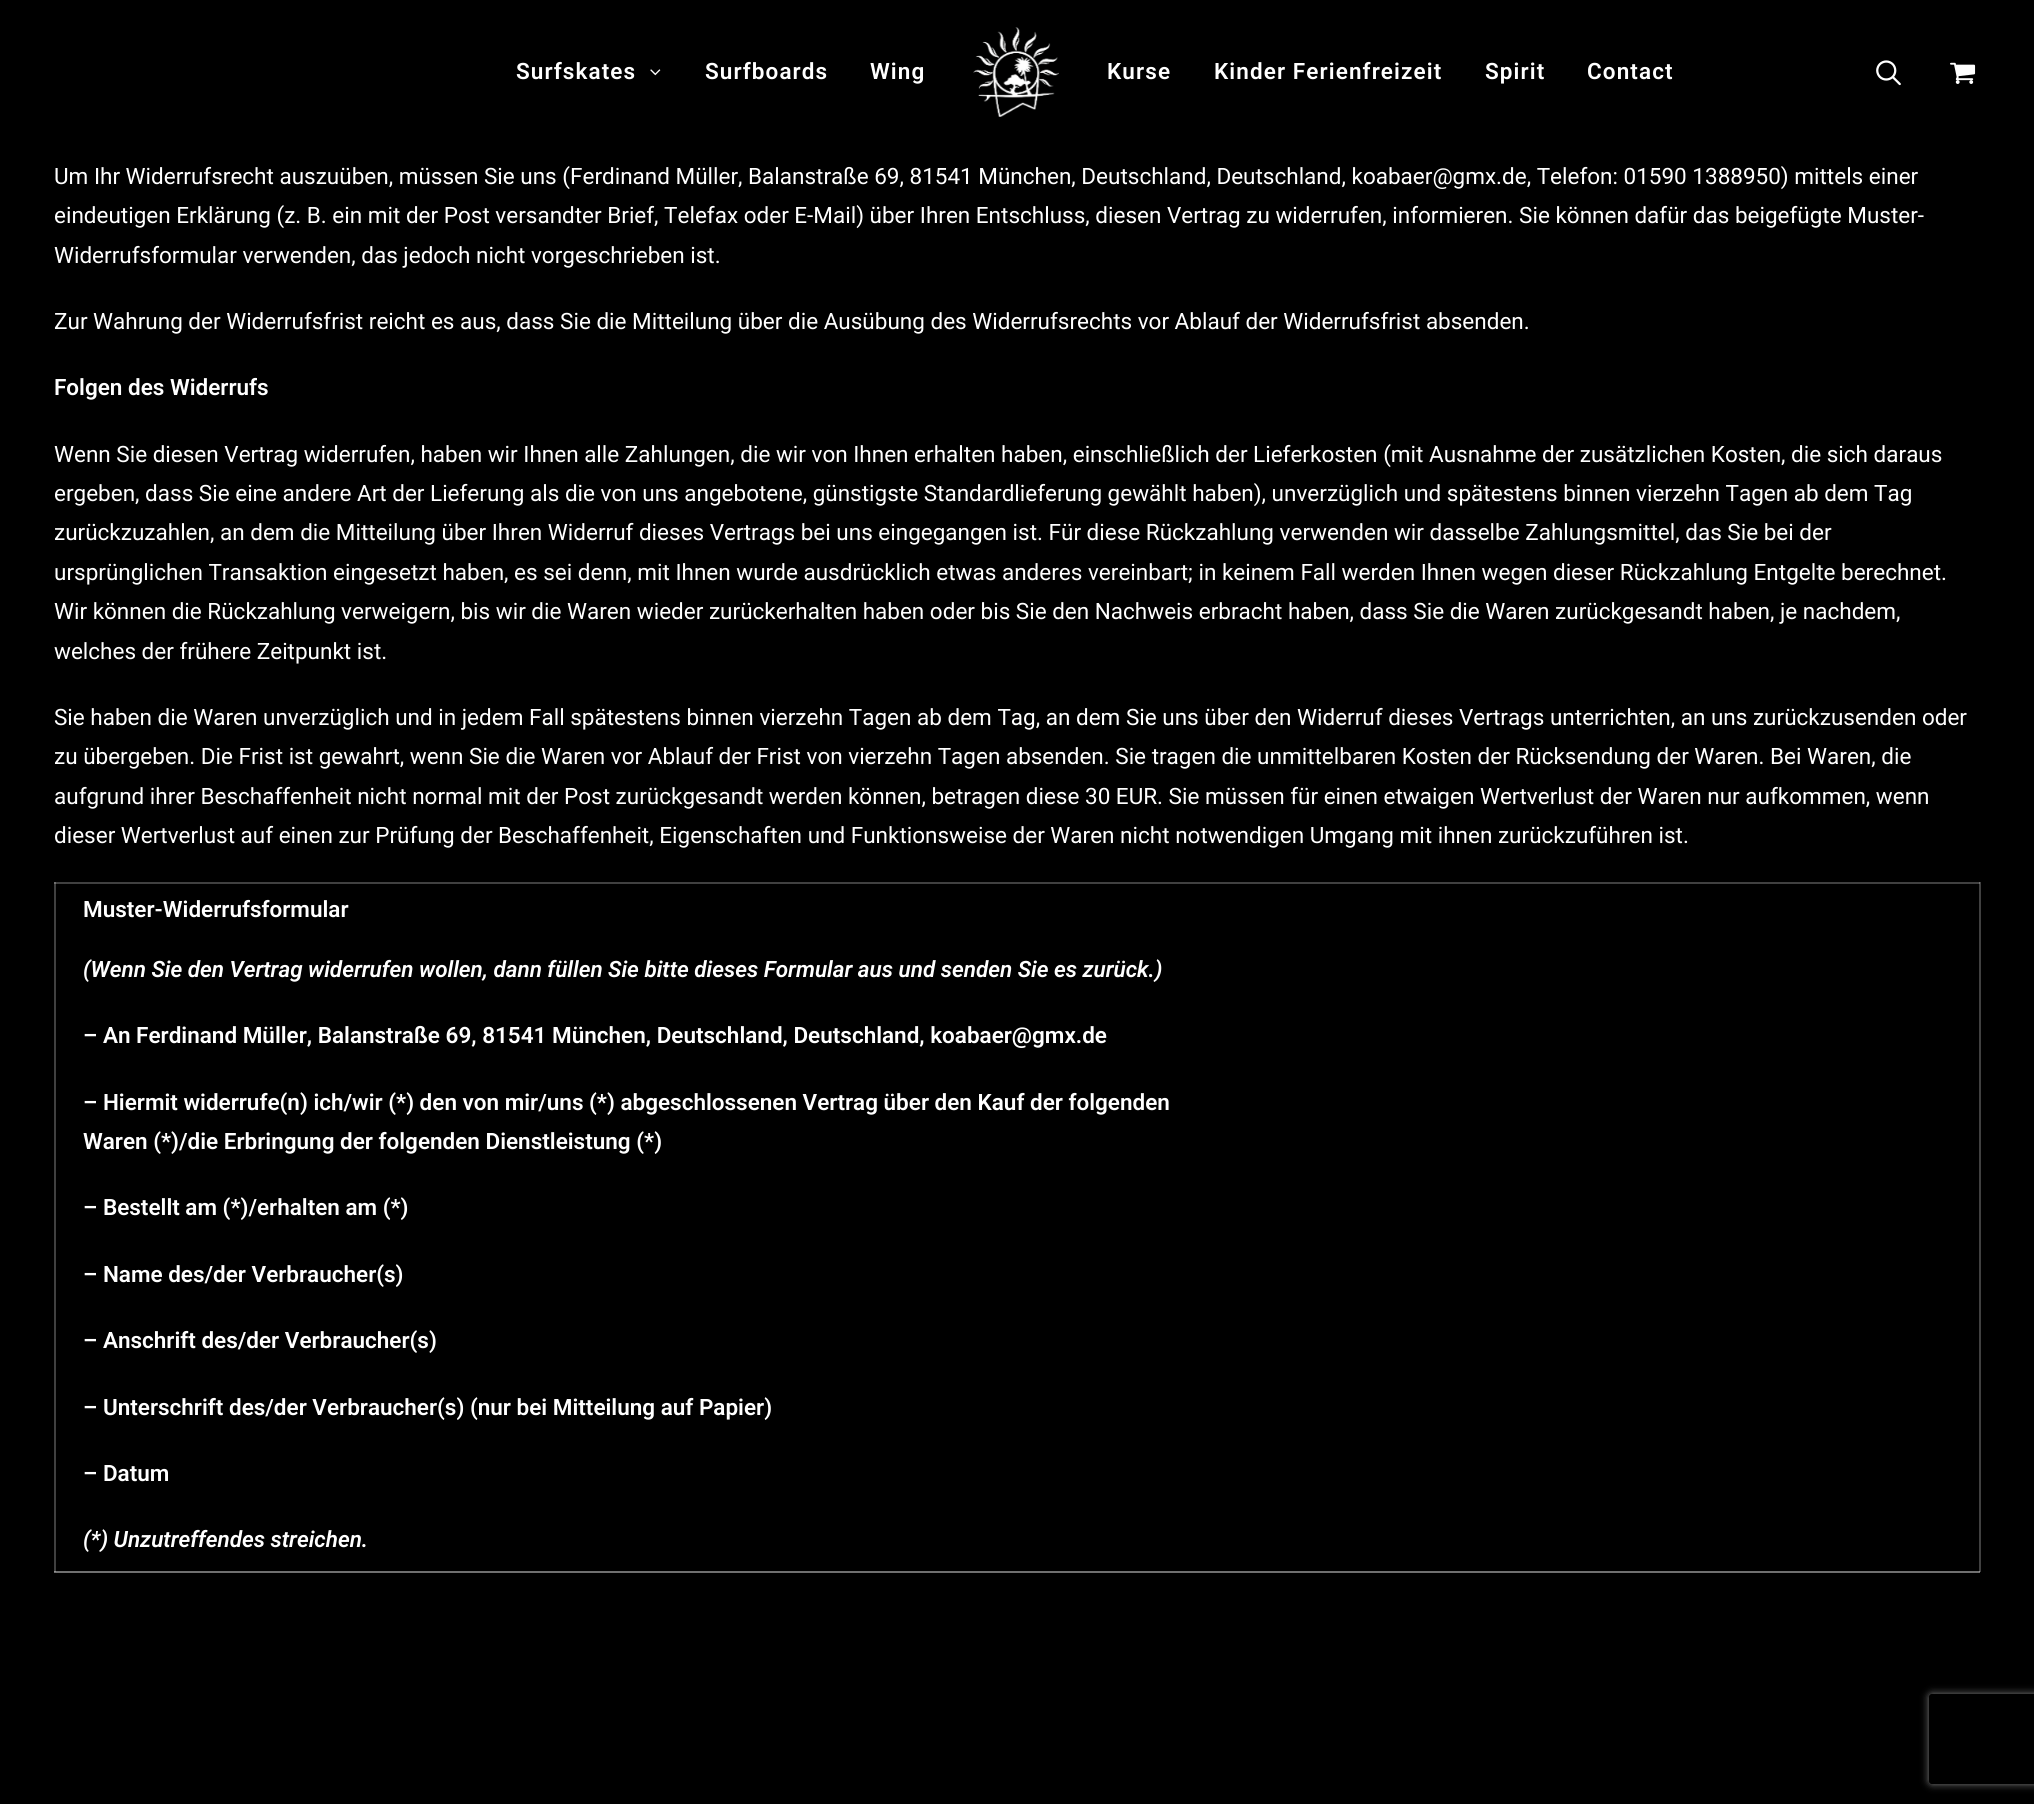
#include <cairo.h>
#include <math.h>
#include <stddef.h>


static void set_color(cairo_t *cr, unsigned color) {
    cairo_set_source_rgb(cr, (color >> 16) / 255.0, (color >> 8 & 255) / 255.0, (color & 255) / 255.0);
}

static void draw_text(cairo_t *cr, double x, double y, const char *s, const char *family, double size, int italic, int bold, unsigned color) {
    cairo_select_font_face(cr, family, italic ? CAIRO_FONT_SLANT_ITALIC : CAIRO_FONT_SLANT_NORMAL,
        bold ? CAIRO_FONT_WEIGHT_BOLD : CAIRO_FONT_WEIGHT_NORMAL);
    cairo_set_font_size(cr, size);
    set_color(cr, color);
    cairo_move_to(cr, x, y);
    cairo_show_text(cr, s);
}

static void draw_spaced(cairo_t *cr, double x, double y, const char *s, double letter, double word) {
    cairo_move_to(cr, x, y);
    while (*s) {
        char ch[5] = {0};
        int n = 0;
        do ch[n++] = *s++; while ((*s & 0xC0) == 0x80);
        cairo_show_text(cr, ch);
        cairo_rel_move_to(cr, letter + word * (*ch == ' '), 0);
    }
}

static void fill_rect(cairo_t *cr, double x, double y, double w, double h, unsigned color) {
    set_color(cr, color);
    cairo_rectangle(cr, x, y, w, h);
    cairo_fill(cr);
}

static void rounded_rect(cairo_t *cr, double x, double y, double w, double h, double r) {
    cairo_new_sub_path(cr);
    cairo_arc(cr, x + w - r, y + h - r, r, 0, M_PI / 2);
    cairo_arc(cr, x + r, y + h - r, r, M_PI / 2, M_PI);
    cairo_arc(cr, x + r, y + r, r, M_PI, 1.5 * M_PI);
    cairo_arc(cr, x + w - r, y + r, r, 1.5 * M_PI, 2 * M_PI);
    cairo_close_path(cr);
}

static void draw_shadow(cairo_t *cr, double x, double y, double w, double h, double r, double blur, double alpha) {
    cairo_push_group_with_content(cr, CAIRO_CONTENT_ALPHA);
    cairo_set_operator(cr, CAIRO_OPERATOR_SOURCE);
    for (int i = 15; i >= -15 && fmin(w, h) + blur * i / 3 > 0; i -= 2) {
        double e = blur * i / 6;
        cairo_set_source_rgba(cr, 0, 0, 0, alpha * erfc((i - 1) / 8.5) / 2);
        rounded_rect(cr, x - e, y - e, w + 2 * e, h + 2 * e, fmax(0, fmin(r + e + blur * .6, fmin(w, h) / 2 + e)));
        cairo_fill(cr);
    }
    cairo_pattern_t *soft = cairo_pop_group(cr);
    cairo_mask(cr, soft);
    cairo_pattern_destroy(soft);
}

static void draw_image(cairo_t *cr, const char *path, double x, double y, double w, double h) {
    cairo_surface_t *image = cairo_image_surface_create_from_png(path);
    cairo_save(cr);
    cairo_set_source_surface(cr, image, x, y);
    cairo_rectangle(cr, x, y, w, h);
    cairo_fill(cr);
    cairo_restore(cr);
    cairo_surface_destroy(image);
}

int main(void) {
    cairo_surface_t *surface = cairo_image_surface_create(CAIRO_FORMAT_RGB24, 2034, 1804);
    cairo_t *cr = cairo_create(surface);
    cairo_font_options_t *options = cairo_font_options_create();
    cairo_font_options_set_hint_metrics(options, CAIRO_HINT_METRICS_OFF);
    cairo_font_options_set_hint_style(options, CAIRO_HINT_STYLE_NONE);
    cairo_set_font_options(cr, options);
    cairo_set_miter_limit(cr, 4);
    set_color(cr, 0x000000);
    cairo_paint(cr);
    cairo_select_font_face(cr, "Roboto SemiBold", CAIRO_FONT_SLANT_NORMAL, CAIRO_FONT_WEIGHT_NORMAL);
    cairo_set_font_size(cr, 22.5);
    set_color(cr, 0xFFFFFF);
    draw_spaced(cr, 516, 79, "Surfskates", 1.1, 0);
    draw_image(cr, "assets/img1.png", 650, 69, 11, 7);
    draw_spaced(cr, 705, 79, "Surfboards", 1.1, 0);
    draw_spaced(cr, 870, 79, "Wing", 1.1, 0);
    draw_image(cr, "assets/img2.png", 973, 27, 86, 90);
    draw_spaced(cr, 1107, 79, "Kurse", 1.1, 0);
    draw_spaced(cr, 1214, 79, "Kinder Ferienfreizeit", 1.1, 0);
    draw_spaced(cr, 1485, 79, "Spirit", 1.1, 0);
    draw_spaced(cr, 1587, 79, "Contact", 1.1, 0);
    draw_image(cr, "assets/img3.png", 1876, 60, 25, 26);
    draw_image(cr, "assets/img4.png", 1950, 62, 26, 22);
    fill_rect(cr, 54, 882, 2, 690, 0x404040);
    fill_rect(cr, 54, 1571, 1926, 2, 0x707070);
    fill_rect(cr, 54, 1571, 2, 1, 0x949494);
    fill_rect(cr, 1979, 882, 2, 690, 0x404040);
    fill_rect(cr, 1979, 1571, 1, 1, 0x949494);
    draw_text(cr, 54, 184, "Um Ihr Widerrufsrecht auszuüben, müssen Sie uns (Ferdinand Müller, Balanstraße 69, 81541 München, Deutschland, Deutschland, koabaer@gmx.de, Telefon: 01590 1388950) mittels einer", "Roboto", 22.5, 0, 0, 0xFFFFFF);
    draw_text(cr, 54, 223, "eindeutigen Erklärung (z. B. ein mit der Post versandter Brief, Telefax oder E-Mail) über Ihren Entschluss, diesen Vertrag zu widerrufen, informieren. Sie können dafür das beigefügte Muster-", "Roboto", 22.5, 0, 0, 0xFFFFFF);
    draw_text(cr, 54, 263, "Widerrufsformular verwenden, das jedoch nicht vorgeschrieben ist.", "Roboto", 22.5, 0, 0, 0xFFFFFF);
    draw_text(cr, 54, 329, "Zur Wahrung der Widerrufsfrist reicht es aus, dass Sie die Mitteilung über die Ausübung des Widerrufsrechts vor Ablauf der Widerrufsfrist absenden.", "Roboto", 22.5, 0, 0, 0xFFFFFF);
    draw_text(cr, 54, 395, "Folgen des Widerrufs", "Roboto SemiBold", 22.5, 0, 0, 0xFFFFFF);
    draw_text(cr, 54, 462, "Wenn Sie diesen Vertrag widerrufen, haben wir Ihnen alle Zahlungen, die wir von Ihnen erhalten haben, einschließlich der Lieferkosten (mit Ausnahme der zusätzlichen Kosten, die sich daraus", "Roboto", 22.5, 0, 0, 0xFFFFFF);
    draw_text(cr, 54, 501, "ergeben, dass Sie eine andere Art der Lieferung als die von uns angebotene, günstigste Standardlieferung gewählt haben), unverzüglich und spätestens binnen vierzehn Tagen ab dem Tag", "Roboto", 22.5, 0, 0, 0xFFFFFF);
    draw_text(cr, 54, 540, "zurückzuzahlen, an dem die Mitteilung über Ihren Widerruf dieses Vertrags bei uns eingegangen ist. Für diese Rückzahlung verwenden wir dasselbe Zahlungsmittel, das Sie bei der", "Roboto", 22.5, 0, 0, 0xFFFFFF);
    draw_text(cr, 54, 580, "ursprünglichen Transaktion eingesetzt haben, es sei denn, mit Ihnen wurde ausdrücklich etwas anderes vereinbart; in keinem Fall werden Ihnen wegen dieser Rückzahlung Entgelte berechnet.", "Roboto", 22.5, 0, 0, 0xFFFFFF);
    draw_text(cr, 54, 619, "Wir können die Rückzahlung verweigern, bis wir die Waren wieder zurückerhalten haben oder bis Sie den Nachweis erbracht haben, dass Sie die Waren zurückgesandt haben, je nachdem,", "Roboto", 22.5, 0, 0, 0xFFFFFF);
    draw_text(cr, 54, 659, "welches der frühere Zeitpunkt ist.", "Roboto", 22.5, 0, 0, 0xFFFFFF);
    draw_text(cr, 54, 725, "Sie haben die Waren unverzüglich und in jedem Fall spätestens binnen vierzehn Tagen ab dem Tag, an dem Sie uns über den Widerruf dieses Vertrags unterrichten, an uns zurückzusenden oder", "Roboto", 22.5, 0, 0, 0xFFFFFF);
    draw_text(cr, 54, 764, "zu übergeben. Die Frist ist gewahrt, wenn Sie die Waren vor Ablauf der Frist von vierzehn Tagen absenden. Sie tragen die unmittelbaren Kosten der Rücksendung der Waren. Bei Waren, die", "Roboto", 22.5, 0, 0, 0xFFFFFF);
    draw_text(cr, 54, 804, "aufgrund ihrer Beschaffenheit nicht normal mit der Post zurückgesandt werden können, betragen diese 30 EUR. Sie müssen für einen etwaigen Wertverlust der Waren nur aufkommen, wenn", "Roboto", 22.5, 0, 0, 0xFFFFFF);
    draw_text(cr, 54, 843, "dieser Wertverlust auf einen zur Prüfung der Beschaffenheit, Eigenschaften und Funktionsweise der Waren nicht notwendigen Umgang mit ihnen zurückzuführen ist.", "Roboto", 22.5, 0, 0, 0xFFFFFF);
    fill_rect(cr, 54, 882, 1926, 2, 0x404040);
    fill_rect(cr, 54, 882, 2, 2, 0x707070);
    fill_rect(cr, 1979, 882, 1, 2, 0x707070);
    draw_text(cr, 83, 917, "Muster-Widerrufsformular", "Roboto SemiBold", 22.5, 0, 0, 0xFFFFFF);
    draw_text(cr, 83, 977, "(Wenn Sie den Vertrag widerrufen wollen, dann füllen Sie bitte dieses Formular aus und senden Sie es zurück.)", "Roboto SemiBold", 22.5, 1, 0, 0xFFFFFF);
    draw_text(cr, 83, 1043, "– An Ferdinand Müller, Balanstraße 69, 81541 München, Deutschland, Deutschland, koabaer@gmx.de", "Roboto SemiBold", 22.5, 0, 0, 0xFFFFFF);
    draw_text(cr, 83, 1110, "– Hiermit widerrufe(n) ich/wir (*) den von mir/uns (*) abgeschlossenen Vertrag über den Kauf der folgenden", "Roboto SemiBold", 22.5, 0, 0, 0xFFFFFF);
    draw_text(cr, 83, 1149, "Waren (*)/die Erbringung der folgenden Dienstleistung (*)", "Roboto SemiBold", 22.5, 0, 0, 0xFFFFFF);
    draw_text(cr, 83, 1215, "– Bestellt am (*)/erhalten am (*)", "Roboto SemiBold", 22.5, 0, 0, 0xFFFFFF);
    draw_text(cr, 83, 1282, "– Name des/der Verbraucher(s)", "Roboto SemiBold", 22.5, 0, 0, 0xFFFFFF);
    draw_text(cr, 83, 1348, "– Anschrift des/der Verbraucher(s)", "Roboto SemiBold", 22.5, 0, 0, 0xFFFFFF);
    draw_text(cr, 83, 1415, "– Unterschrift des/der Verbraucher(s) (nur bei Mitteilung auf Papier)", "Roboto SemiBold", 22.5, 0, 0, 0xFFFFFF);
    draw_text(cr, 83, 1481, "– Datum", "Roboto SemiBold", 22.5, 0, 0, 0xFFFFFF);
    draw_text(cr, 83, 1547, "(*) Unzutreffendes streichen.", "Roboto SemiBold", 22.5, 1, 0, 0xFFFFFF);
    cairo_save(cr);
    cairo_set_fill_rule(cr, CAIRO_FILL_RULE_EVEN_ODD);
    cairo_new_path(cr);
    cairo_move_to(cr, 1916, 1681);
    cairo_line_to(cr, 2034, 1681);
    cairo_line_to(cr, 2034, 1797);
    cairo_line_to(cr, 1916, 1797);
    cairo_close_path(cr);
    cairo_move_to(cr, 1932, 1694);
    cairo_line_to(cr, 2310, 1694);
    cairo_curve_to(cr, 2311.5, 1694, 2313, 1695.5, 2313, 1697);
    cairo_line_to(cr, 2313, 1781);
    cairo_curve_to(cr, 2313, 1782.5, 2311.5, 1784, 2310, 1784);
    cairo_line_to(cr, 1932, 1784);
    cairo_curve_to(cr, 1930.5, 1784, 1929, 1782.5, 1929, 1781);
    cairo_line_to(cr, 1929, 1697);
    cairo_curve_to(cr, 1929, 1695.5, 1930.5, 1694, 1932, 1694);
    cairo_close_path(cr);
    cairo_clip(cr);
    set_color(cr, 0x808080);
    draw_shadow(cr, 1929, 1694, 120, 90, 3, 4, 1);
    cairo_restore(cr);
    cairo_surface_write_to_png(surface, "output.png");
    cairo_font_options_destroy(options);
    cairo_destroy(cr);
    cairo_surface_destroy(surface);
    return 0;
}
